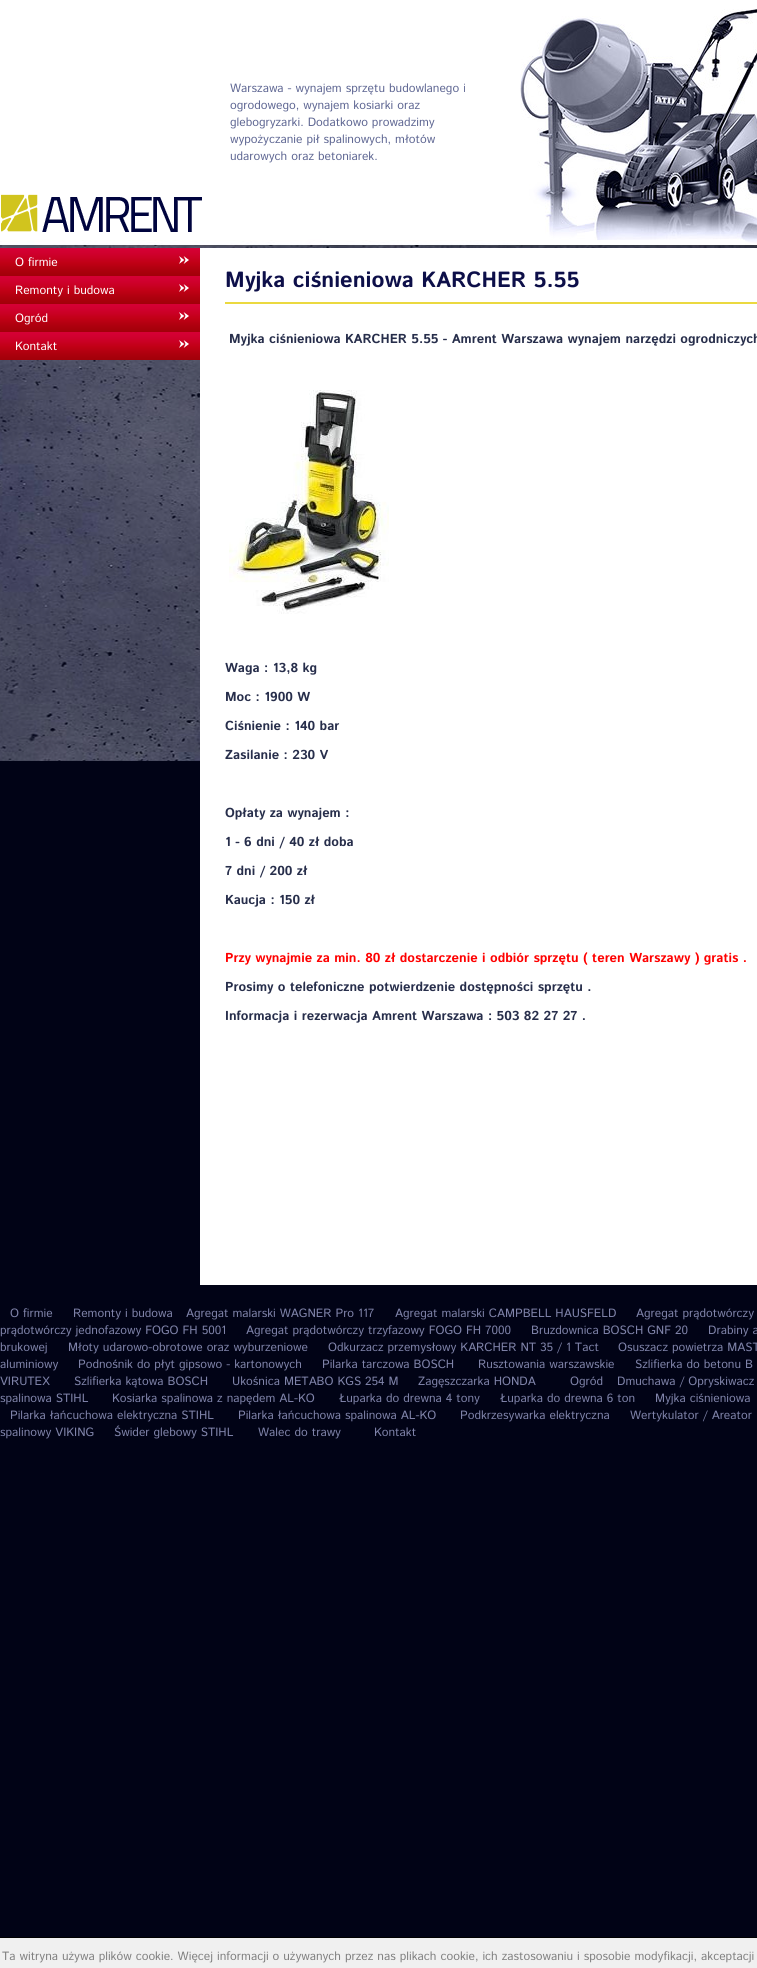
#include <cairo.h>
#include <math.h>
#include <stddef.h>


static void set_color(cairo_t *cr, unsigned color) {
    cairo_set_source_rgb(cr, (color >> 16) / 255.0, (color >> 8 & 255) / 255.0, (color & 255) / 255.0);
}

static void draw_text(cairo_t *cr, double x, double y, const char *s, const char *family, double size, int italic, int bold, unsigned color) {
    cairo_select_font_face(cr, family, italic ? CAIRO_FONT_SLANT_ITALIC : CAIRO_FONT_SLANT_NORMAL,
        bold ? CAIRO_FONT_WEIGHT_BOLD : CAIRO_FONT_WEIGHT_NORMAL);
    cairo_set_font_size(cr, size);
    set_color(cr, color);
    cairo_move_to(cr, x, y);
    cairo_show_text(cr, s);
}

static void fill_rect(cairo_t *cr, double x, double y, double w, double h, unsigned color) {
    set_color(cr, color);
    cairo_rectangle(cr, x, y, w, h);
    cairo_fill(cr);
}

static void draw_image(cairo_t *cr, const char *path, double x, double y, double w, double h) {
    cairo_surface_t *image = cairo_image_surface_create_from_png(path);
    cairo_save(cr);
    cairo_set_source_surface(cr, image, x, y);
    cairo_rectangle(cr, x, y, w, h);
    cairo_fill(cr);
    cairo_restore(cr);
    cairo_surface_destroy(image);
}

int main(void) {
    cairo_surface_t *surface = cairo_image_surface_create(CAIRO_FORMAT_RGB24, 757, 1968);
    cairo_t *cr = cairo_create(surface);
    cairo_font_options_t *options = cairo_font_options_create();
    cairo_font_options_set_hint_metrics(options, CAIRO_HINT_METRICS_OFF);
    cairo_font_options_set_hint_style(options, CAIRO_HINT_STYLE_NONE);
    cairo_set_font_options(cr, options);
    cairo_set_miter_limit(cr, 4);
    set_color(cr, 0x010316);
    cairo_paint(cr);
    draw_image(cr, "assets/img1.png", 0, 0, 757, 761);
    draw_image(cr, "assets/img2.png", 520, 9, 237, 236);
    draw_text(cr, 230, 92, "Warszawa - wynajem sprzętu budowlanego i", "Istok Web", 12, 0, 0, 0x5F6793);
    draw_text(cr, 230, 109, "ogrodowego, wynajem kosiarki oraz", "Istok Web", 12, 0, 0, 0x5F6793);
    draw_text(cr, 230, 126, "glebogryzarki. Dodatkowo prowadzimy", "Istok Web", 12, 0, 0, 0x5F6793);
    draw_text(cr, 230, 143, "wypożyczanie pił spalinowych, młotów", "Istok Web", 12, 0, 0, 0x5F6793);
    draw_text(cr, 230, 160, "udarowych oraz betoniarek.", "Istok Web", 12, 0, 0, 0x5F6793);
    draw_image(cr, "assets/img3.png", 1, 194, 201, 38);
    draw_image(cr, "assets/img4.png", 0, 248, 200, 28);
    draw_image(cr, "assets/img5.png", 179, 256, 10, 8);
    draw_text(cr, 15, 266, "O firmie", "Istok Web", 12, 0, 0, 0xFFFFFF);
    draw_image(cr, "assets/img4.png", 0, 276, 200, 28);
    draw_image(cr, "assets/img5.png", 179, 284, 10, 8);
    draw_text(cr, 15, 294, "Remonty i budowa", "Istok Web", 12, 0, 0, 0xFFFFFF);
    draw_image(cr, "assets/img4.png", 0, 304, 200, 28);
    draw_image(cr, "assets/img5.png", 179, 312, 10, 8);
    draw_text(cr, 15, 322, "Ogród", "Istok Web", 12, 0, 0, 0xFFFFFF);
    draw_image(cr, "assets/img4.png", 0, 332, 200, 28);
    draw_image(cr, "assets/img5.png", 179, 340, 10, 8);
    draw_text(cr, 15, 350, "Kontakt", "Istok Web", 12, 0, 0, 0xFFFFFF);
    fill_rect(cr, 200, 248, 557, 1037, 0xFFFFFF);
    draw_text(cr, 225, 287, "Myjka ciśnieniowa KARCHER 5.55", "Istok Web", 22, 0, 1, 0x0D0F49);
    fill_rect(cr, 225, 302, 532, 2, 0xEBD940);
    draw_text(cr, 229, 343, "Myjka ciśnieniowa KARCHER 5.55 - Amrent Warszawa wynajem narzędzi ogrodniczych", "Istok Web", 13, 0, 1, 0x272E4B);
    draw_image(cr, "assets/img6.png", 229, 390, 160, 224);
    draw_text(cr, 225, 672, "Waga : 13,8 kg", "Istok Web", 13, 0, 1, 0x272E4B);
    draw_text(cr, 225, 701, "Moc : 1900 W", "Istok Web", 13, 0, 1, 0x272E4B);
    draw_text(cr, 225, 730, "Ciśnienie : 140 bar", "Istok Web", 13, 0, 1, 0x272E4B);
    draw_text(cr, 225, 759, "Zasilanie : 230 V", "Istok Web", 13, 0, 1, 0x272E4B);
    draw_text(cr, 225, 817, "Opłaty za wynajem :", "Istok Web", 13, 0, 1, 0x272E4B);
    draw_text(cr, 225, 846, "1 - 6 dni / 40 zł doba", "Istok Web", 13, 0, 1, 0x272E4B);
    draw_text(cr, 225, 875, "7 dni / 200 zł", "Istok Web", 13, 0, 1, 0x272E4B);
    draw_text(cr, 225, 904, "Kaucja : 150 zł", "Istok Web", 13, 0, 1, 0x272E4B);
    draw_text(cr, 225, 962, "Przy wynajmie za min. 80 zł dostarczenie i odbiór sprzętu ( teren Warszawy ) gratis .", "Istok Web", 13, 0, 1, 0xFF0000);
    draw_text(cr, 225, 991, "Prosimy o telefoniczne potwierdzenie dostępności sprzętu .", "Istok Web", 13, 0, 1, 0x272E4B);
    draw_text(cr, 225, 1020, "Informacja i rezerwacja Amrent Warszawa : 503 82 27 27 .", "Istok Web", 13, 0, 1, 0x272E4B);
    draw_text(cr, 10, 1317, "O firmie", "Istok Web", 12, 0, 0, 0x7F83A9);
    draw_text(cr, 73, 1317, "Remonty i budowa", "Istok Web", 12, 0, 0, 0x7F83A9);
    draw_text(cr, 186, 1317, "Agregat malarski WAGNER Pro 117", "Istok Web", 12, 0, 0, 0x7F83A9);
    draw_text(cr, 395, 1317, "Agregat malarski CAMPBELL HAUSFELD", "Istok Web", 12, 0, 0, 0x7F83A9);
    draw_text(cr, 636, 1317, "Agregat prądotwórczy", "Istok Web", 12, 0, 0, 0x7F83A9);
    draw_text(cr, 0, 1334, "prądotwórczy jednofazowy FOGO FH 5001", "Istok Web", 12, 0, 0, 0x7F83A9);
    draw_text(cr, 246, 1334, "Agregat prądotwórczy trzyfazowy FOGO FH 7000", "Istok Web", 12, 0, 0, 0x7F83A9);
    draw_text(cr, 531, 1334, "Bruzdownica BOSCH GNF 20", "Istok Web", 12, 0, 0, 0x7F83A9);
    draw_text(cr, 708, 1334, "Drabiny a", "Istok Web", 12, 0, 0, 0x7F83A9);
    draw_text(cr, 0, 1351, "brukowej", "Istok Web", 12, 0, 0, 0x7F83A9);
    draw_text(cr, 68, 1351, "Młoty udarowo-obrotowe oraz wyburzeniowe", "Istok Web", 12, 0, 0, 0x7F83A9);
    draw_text(cr, 328, 1351, "Odkurzacz przemysłowy KARCHER NT 35 / 1 Tact", "Istok Web", 12, 0, 0, 0x7F83A9);
    draw_text(cr, 618, 1351, "Osuszacz powietrza MAST", "Istok Web", 12, 0, 0, 0x7F83A9);
    draw_text(cr, 0, 1368, "aluminiowy", "Istok Web", 12, 0, 0, 0x7F83A9);
    draw_text(cr, 78, 1368, "Podnośnik do płyt gipsowo - kartonowych", "Istok Web", 12, 0, 0, 0x7F83A9);
    draw_text(cr, 322, 1368, "Pilarka tarczowa BOSCH", "Istok Web", 12, 0, 0, 0x7F83A9);
    draw_text(cr, 478, 1368, "Rusztowania warszawskie", "Istok Web", 12, 0, 0, 0x7F83A9);
    draw_text(cr, 635, 1368, "Szlifierka do betonu B", "Istok Web", 12, 0, 0, 0x7F83A9);
    draw_text(cr, 0, 1385, "VIRUTEX", "Istok Web", 12, 0, 0, 0x7F83A9);
    draw_text(cr, 74, 1385, "Szlifierka kątowa BOSCH", "Istok Web", 12, 0, 0, 0x7F83A9);
    draw_text(cr, 232, 1385, "Ukośnica METABO KGS 254 M", "Istok Web", 12, 0, 0, 0x7F83A9);
    draw_text(cr, 418, 1385, "Zagęszczarka HONDA", "Istok Web", 12, 0, 0, 0x7F83A9);
    draw_text(cr, 570, 1385, "Ogród", "Istok Web", 12, 0, 0, 0x7F83A9);
    draw_text(cr, 617, 1385, "Dmuchawa / Opryskiwacz", "Istok Web", 12, 0, 0, 0x7F83A9);
    draw_text(cr, 0, 1402, "spalinowa STIHL", "Istok Web", 12, 0, 0, 0x7F83A9);
    draw_text(cr, 112, 1402, "Kosiarka spalinowa z napędem AL-KO", "Istok Web", 12, 0, 0, 0x7F83A9);
    draw_text(cr, 339, 1402, "Łuparka do drewna 4 tony", "Istok Web", 12, 0, 0, 0x7F83A9);
    draw_text(cr, 500, 1402, "Łuparka do drewna 6 ton", "Istok Web", 12, 0, 0, 0x7F83A9);
    draw_text(cr, 655, 1402, "Myjka ciśnieniowa", "Istok Web", 12, 0, 0, 0x7F83A9);
    draw_text(cr, 10, 1419, "Pilarka łańcuchowa elektryczna STIHL", "Istok Web", 12, 0, 0, 0x7F83A9);
    draw_text(cr, 238, 1419, "Pilarka łańcuchowa spalinowa AL-KO", "Istok Web", 12, 0, 0, 0x7F83A9);
    draw_text(cr, 460, 1419, "Podkrzesywarka elektryczna", "Istok Web", 12, 0, 0, 0x7F83A9);
    draw_text(cr, 630, 1419, "Wertykulator / Areator", "Istok Web", 12, 0, 0, 0x7F83A9);
    draw_text(cr, 0, 1436, "spalinowy VIKING", "Istok Web", 12, 0, 0, 0x7F83A9);
    draw_text(cr, 114, 1436, "Świder glebowy STIHL", "Istok Web", 12, 0, 0, 0x7F83A9);
    draw_text(cr, 258, 1436, "Walec do trawy", "Istok Web", 12, 0, 0, 0x7F83A9);
    draw_text(cr, 374, 1436, "Kontakt", "Istok Web", 12, 0, 0, 0x7F83A9);
    fill_rect(cr, 0, 1938, 757, 30, 0xF0F0F0);
    fill_rect(cr, 0, 1937, 757, 1, 0x000000);
    draw_text(cr, 2, 1960, "Ta witryna używa plików cookie. Więcej informacji o używanych przez nas plikach cookie, ich zastosowaniu i sposobie modyfikacji, akceptacji", "Istok Web", 12, 0, 0, 0x808080);
    cairo_surface_write_to_png(surface, "output.png");
    cairo_font_options_destroy(options);
    cairo_destroy(cr);
    cairo_surface_destroy(surface);
    return 0;
}
